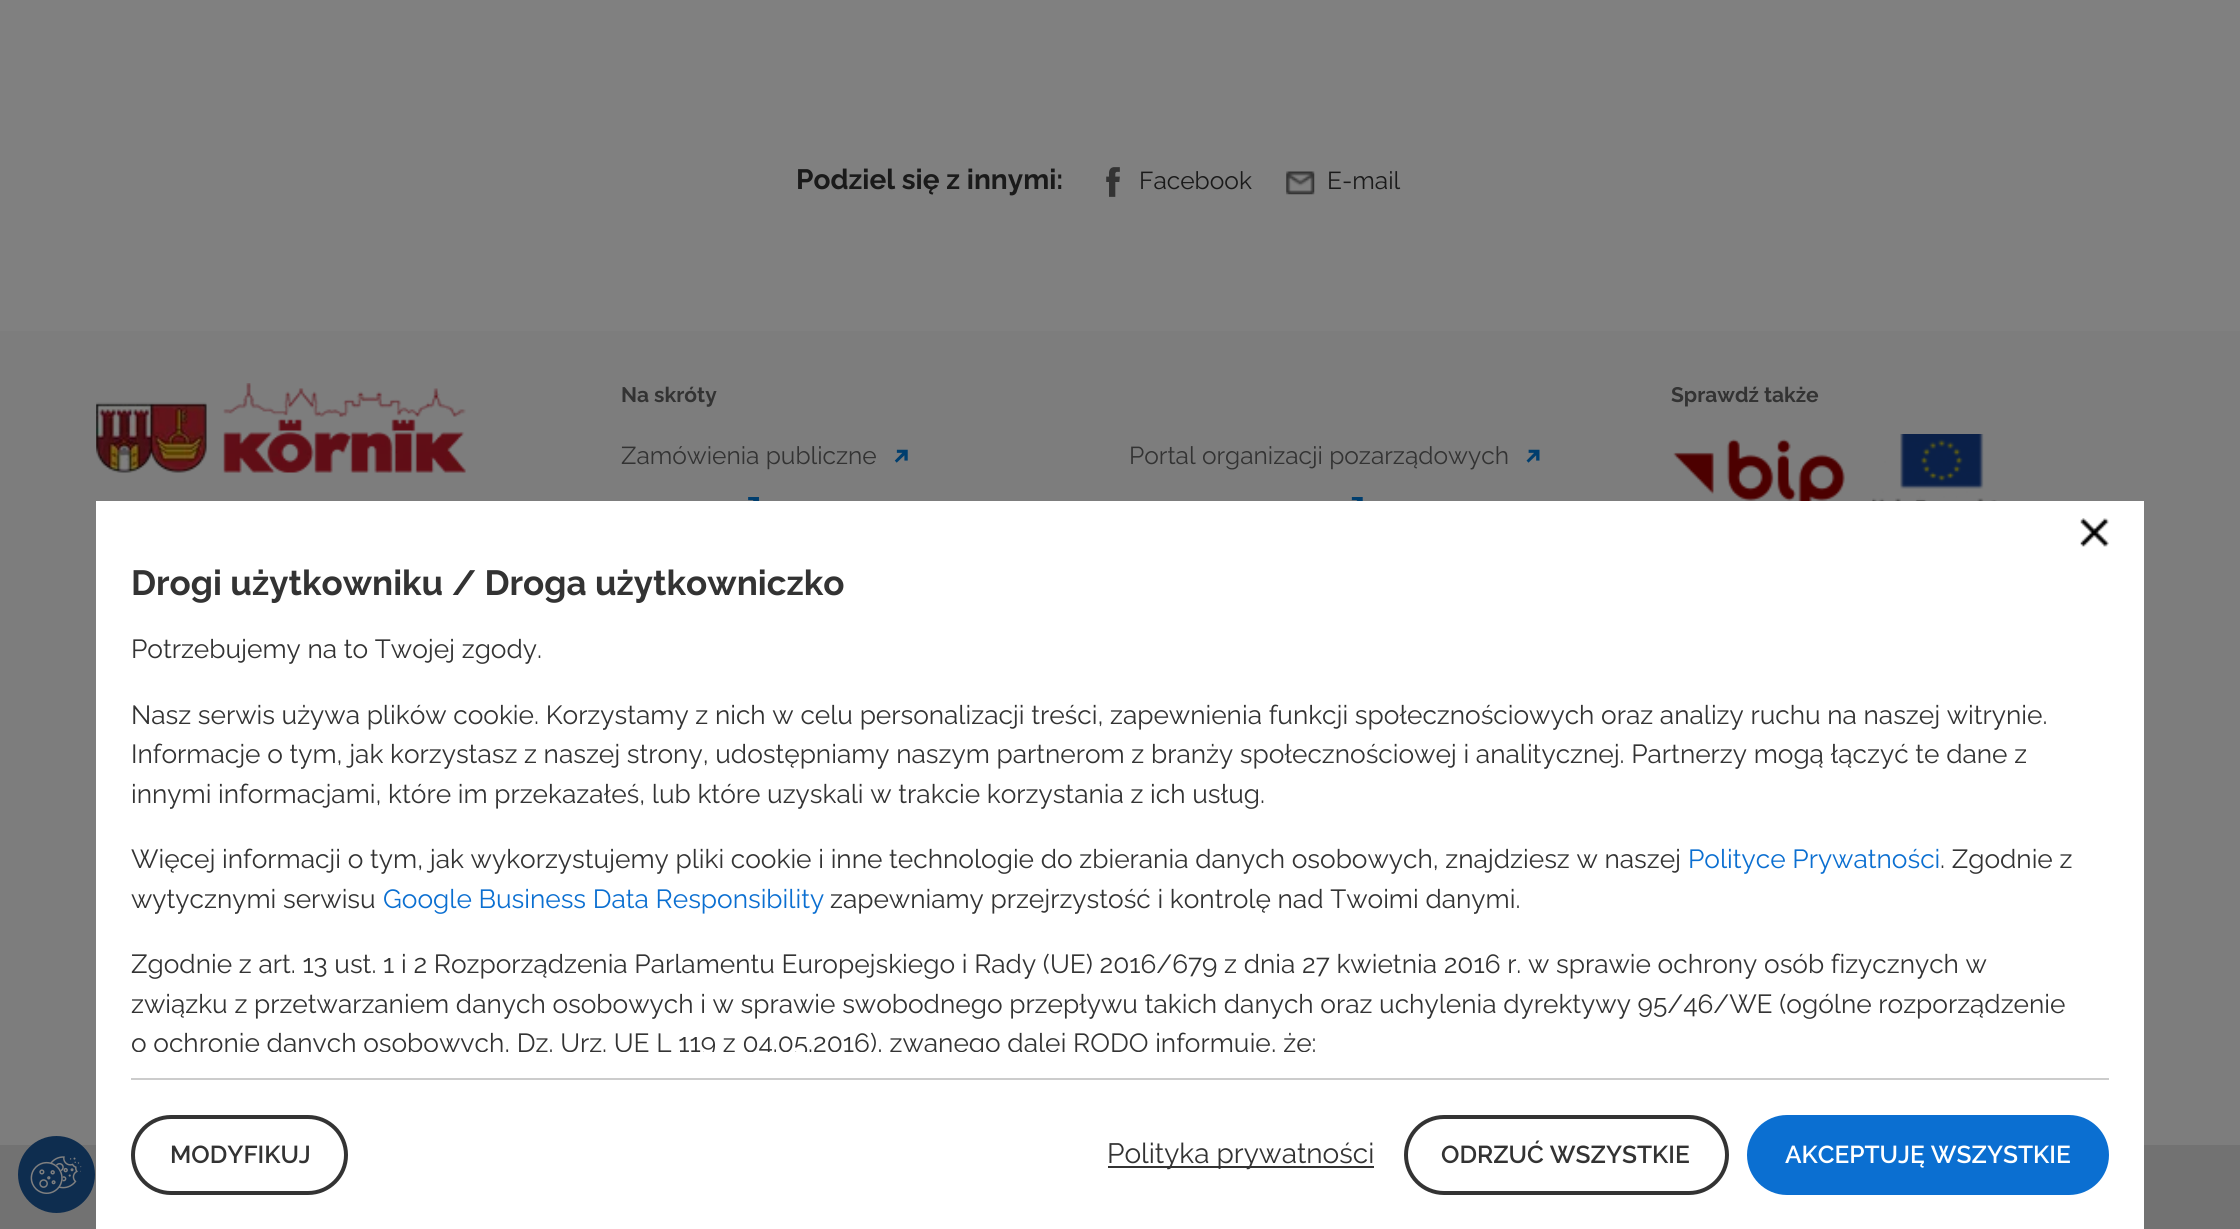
#include <cairo.h>
#include <math.h>
#include <stddef.h>


static void set_color(cairo_t *cr, unsigned color) {
    cairo_set_source_rgb(cr, (color >> 16) / 255.0, (color >> 8 & 255) / 255.0, (color & 255) / 255.0);
}

static void draw_text(cairo_t *cr, double x, double y, const char *s, const char *family, double size, int italic, int bold, unsigned color) {
    cairo_select_font_face(cr, family, italic ? CAIRO_FONT_SLANT_ITALIC : CAIRO_FONT_SLANT_NORMAL,
        bold ? CAIRO_FONT_WEIGHT_BOLD : CAIRO_FONT_WEIGHT_NORMAL);
    cairo_set_font_size(cr, size);
    set_color(cr, color);
    cairo_move_to(cr, x, y);
    cairo_show_text(cr, s);
}

static void fill_rect(cairo_t *cr, double x, double y, double w, double h, unsigned color) {
    set_color(cr, color);
    cairo_rectangle(cr, x, y, w, h);
    cairo_fill(cr);
}

static void rounded_rect(cairo_t *cr, double x, double y, double w, double h, double r) {
    cairo_new_sub_path(cr);
    cairo_arc(cr, x + w - r, y + h - r, r, 0, M_PI / 2);
    cairo_arc(cr, x + r, y + h - r, r, M_PI / 2, M_PI);
    cairo_arc(cr, x + r, y + r, r, M_PI, 1.5 * M_PI);
    cairo_arc(cr, x + w - r, y + r, r, 1.5 * M_PI, 2 * M_PI);
    cairo_close_path(cr);
}

static void draw_image(cairo_t *cr, const char *path, double x, double y, double w, double h) {
    cairo_surface_t *image = cairo_image_surface_create_from_png(path);
    cairo_save(cr);
    cairo_set_source_surface(cr, image, x, y);
    cairo_rectangle(cr, x, y, w, h);
    cairo_fill(cr);
    cairo_restore(cr);
    cairo_surface_destroy(image);
}

int main(void) {
    cairo_surface_t *surface = cairo_image_surface_create(CAIRO_FORMAT_RGB24, 2240, 1229);
    cairo_t *cr = cairo_create(surface);
    cairo_font_options_t *options = cairo_font_options_create();
    cairo_font_options_set_hint_metrics(options, CAIRO_HINT_METRICS_OFF);
    cairo_font_options_set_hint_style(options, CAIRO_HINT_STYLE_NONE);
    cairo_set_font_options(cr, options);
    cairo_set_miter_limit(cr, 4);
    set_color(cr, 0x808080);
    cairo_paint(cr);
    draw_text(cr, 796, 189, "Podziel się z innymi:", "Raleway", 28, 0, 1, 0x1A1A1A);
    draw_image(cr, "assets/img1.png", 1106, 167, 14, 30);
    draw_text(cr, 1139, 189, "Facebook", "Raleway", 24.5, 0, 0, 0x1A1A1A);
    draw_image(cr, "assets/img2.png", 1286, 171, 29, 24);
    draw_text(cr, 1327, 189, "E-mail", "Raleway", 24.5, 0, 0, 0x1A1A1A);
    fill_rect(cr, 0, 331, 2240, 814, 0x7D7D7D);
    draw_image(cr, "assets/img3.png", 96, 383, 370, 90);
    draw_text(cr, 621, 402, "Na skróty", "Raleway", 21, 0, 1, 0x333333);
    draw_text(cr, 621, 464, "Zamówienia publiczne", "Raleway", 24.5, 0, 0, 0x333333);
    draw_image(cr, "assets/img4.png", 894, 449, 14, 14);
    draw_text(cr, 1129, 464, "Portal organizacji pozarządowych", "Raleway", 24.5, 0, 0, 0x333333);
    draw_image(cr, "assets/img5.png", 1526, 449, 14, 14);
    draw_image(cr, "assets/img6.png", 748, 497, 11, 4);
    draw_image(cr, "assets/img7.png", 1351, 497, 12, 4);
    draw_text(cr, 1671, 402, "Sprawdź także", "Raleway", 21, 0, 1, 0x333333);
    draw_image(cr, "assets/img8.png", 1673, 439, 172, 62);
    draw_image(cr, "assets/img9.png", 1872, 434, 125, 67);
    fill_rect(cr, 0, 1145, 2240, 84, 0x727272);
    set_color(cr, 0x0E2D4F);
    cairo_arc(cr, 56.5, 1174.5, 38.5, 0, 2 * M_PI);
    cairo_fill(cr);
    draw_image(cr, "assets/img10.png", 30, 1156, 52, 38);
    fill_rect(cr, 96, 501, 2048, 728, 0xFFFFFF);
    draw_image(cr, "assets/img11.png", 2080, 518, 29, 29);
    draw_text(cr, 131, 595, "Drogi użytkowniku / Droga użytkowniczko", "Raleway", 35, 0, 1, 0x333333);
    draw_text(cr, 131, 658, "Potrzebujemy na to Twojej zgody.", "Raleway", 26.25, 0, 0, 0x333333);
    draw_text(cr, 131, 724, "Nasz serwis używa plików cookie. Korzystamy z nich w celu personalizacji treści, zapewnienia funkcji społecznościowych oraz analizy ruchu na naszej witrynie.", "Raleway", 26.25, 0, 0, 0x333333);
    draw_text(cr, 131, 763, "Informacje o tym, jak korzystasz z naszej strony, udostępniamy naszym partnerom z branży społecznościowej i analitycznej. Partnerzy mogą łączyć te dane z", "Raleway", 26.25, 0, 0, 0x333333);
    draw_text(cr, 131, 803, "innymi informacjami, które im przekazałeś, lub które uzyskali w trakcie korzystania z ich usług.", "Raleway", 26.25, 0, 0, 0x333333);
    draw_text(cr, 131, 868, "Więcej informacji o tym, jak wykorzystujemy pliki cookie i inne technologie do zbierania danych osobowych, znajdziesz w naszej", "Raleway", 26.25, 0, 0, 0x333333);
    draw_text(cr, 1688, 868, "Polityce Prywatności", "Raleway", 26.25, 0, 0, 0x0B6FD1);
    draw_text(cr, 1940, 868, ". Zgodnie z", "Raleway", 26.25, 0, 0, 0x333333);
    draw_text(cr, 131, 908, "wytycznymi serwisu", "Raleway", 26.25, 0, 0, 0x333333);
    draw_text(cr, 383, 908, "Google Business Data Responsibility", "Raleway", 26.25, 0, 0, 0x0B6FD1);
    draw_text(cr, 830, 908, "zapewniamy przejrzystość i kontrolę nad Twoimi danymi.", "Raleway", 26.25, 0, 0, 0x333333);
    draw_text(cr, 131, 973, "Zgodnie z art. 13 ust. 1 i 2 Rozporządzenia Parlamentu Europejskiego i Rady (UE) 2016/679 z dnia 27 kwietnia 2016 r. w sprawie ochrony osób fizycznych w", "Raleway", 26.25, 0, 0, 0x333333);
    draw_text(cr, 131, 1013, "związku z przetwarzaniem danych osobowych i w sprawie swobodnego przepływu takich danych oraz uchylenia dyrektywy 95/46/WE (ogólne rozporządzenie", "Raleway", 26.25, 0, 0, 0x333333);
    cairo_save(cr);
    cairo_rectangle(cr, 131, 562, 1978, 490);
    cairo_clip(cr);
    draw_text(cr, 131, 1052, "o ochronie danych osobowych, Dz. Urz. UE L 119 z 04.05.2016), zwanego dalej RODO informuję, że:", "Raleway", 26.25, 0, 0, 0x333333);
    cairo_restore(cr);
    fill_rect(cr, 131, 1078, 1978, 2, 0xCCCCCC);
    rounded_rect(cr, 133, 1117, 213, 76, 38);
    set_color(cr, 0x333333);
    cairo_set_line_width(cr, 4);
    cairo_stroke(cr);
    draw_text(cr, 170, 1163, "MODYFIKUJ", "Raleway SemiBold", 24.5, 0, 0, 0x333333);
    fill_rect(cr, 1108, 1166, 266, 2, 0x333333);
    draw_text(cr, 1107, 1163, "Polityka prywatności", "Raleway", 28, 0, 0, 0x333333);
    rounded_rect(cr, 1406, 1117, 321, 76, 38);
    cairo_stroke(cr);
    draw_text(cr, 1441, 1163, "ODRZUĆ WSZYSTKIE", "Raleway SemiBold", 24.5, 0, 0, 0x333333);
    set_color(cr, 0x0B6FD1);
    rounded_rect(cr, 1747, 1115, 362, 80, 40);
    cairo_fill(cr);
    draw_text(cr, 1785, 1163, "AKCEPTUJĘ WSZYSTKIE", "Raleway SemiBold", 24.5, 0, 0, 0xFFFFFF);
    cairo_surface_write_to_png(surface, "output.png");
    cairo_font_options_destroy(options);
    cairo_destroy(cr);
    cairo_surface_destroy(surface);
    return 0;
}
